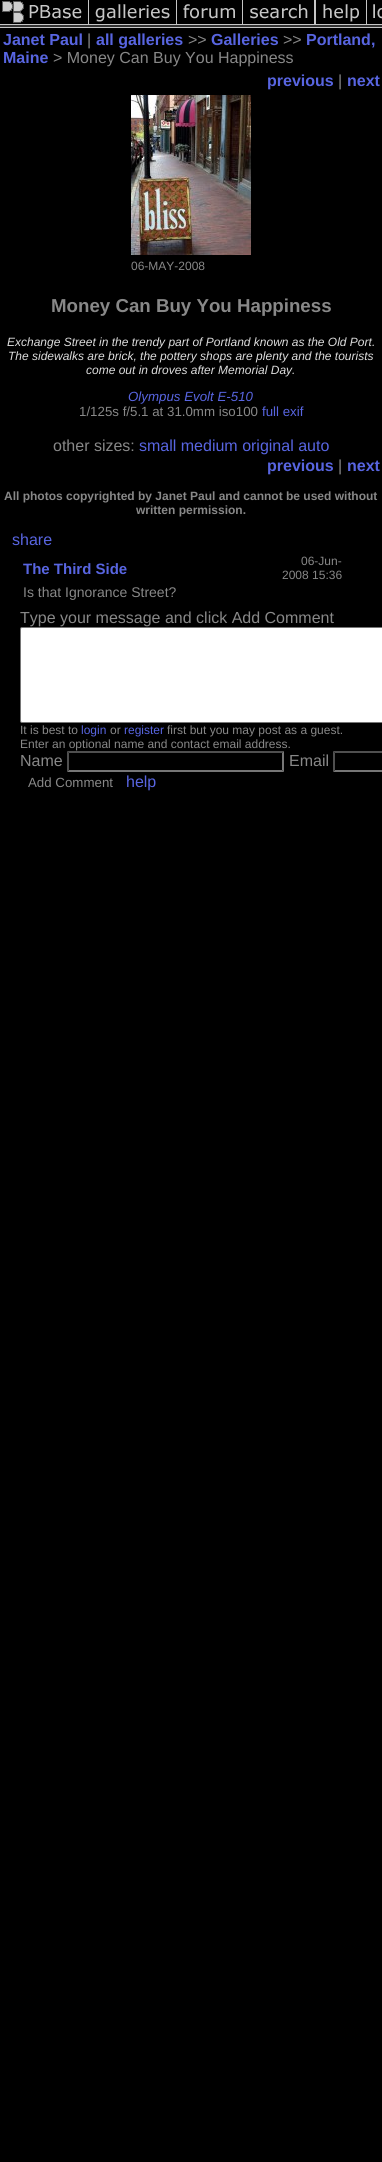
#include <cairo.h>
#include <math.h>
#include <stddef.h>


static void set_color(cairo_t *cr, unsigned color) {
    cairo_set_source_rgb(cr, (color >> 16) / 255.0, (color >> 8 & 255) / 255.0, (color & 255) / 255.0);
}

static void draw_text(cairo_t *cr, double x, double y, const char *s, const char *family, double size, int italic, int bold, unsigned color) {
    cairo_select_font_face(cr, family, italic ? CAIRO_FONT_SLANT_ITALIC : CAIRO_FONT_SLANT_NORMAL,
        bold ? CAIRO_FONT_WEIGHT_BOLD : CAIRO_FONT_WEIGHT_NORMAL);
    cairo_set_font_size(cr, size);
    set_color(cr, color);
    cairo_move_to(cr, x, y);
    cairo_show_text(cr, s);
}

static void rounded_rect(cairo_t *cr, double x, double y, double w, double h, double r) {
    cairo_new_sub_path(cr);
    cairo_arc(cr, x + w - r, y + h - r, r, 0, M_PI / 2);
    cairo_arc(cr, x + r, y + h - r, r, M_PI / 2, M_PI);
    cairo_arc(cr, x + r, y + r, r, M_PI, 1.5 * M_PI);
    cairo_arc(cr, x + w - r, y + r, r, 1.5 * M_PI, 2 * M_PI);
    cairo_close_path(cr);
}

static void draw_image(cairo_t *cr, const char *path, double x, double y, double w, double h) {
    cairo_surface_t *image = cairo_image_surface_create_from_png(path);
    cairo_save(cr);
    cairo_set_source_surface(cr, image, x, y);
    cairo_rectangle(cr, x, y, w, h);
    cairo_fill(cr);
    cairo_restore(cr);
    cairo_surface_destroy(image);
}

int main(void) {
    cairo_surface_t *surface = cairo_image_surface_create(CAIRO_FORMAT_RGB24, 382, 2162);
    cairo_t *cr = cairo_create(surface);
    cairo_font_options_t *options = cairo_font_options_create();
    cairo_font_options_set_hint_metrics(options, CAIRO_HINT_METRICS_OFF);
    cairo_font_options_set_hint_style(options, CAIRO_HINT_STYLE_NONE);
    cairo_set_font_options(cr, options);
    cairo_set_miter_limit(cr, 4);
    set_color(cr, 0x000000);
    cairo_paint(cr);
    draw_image(cr, "assets/img1.png", 0, 0, 89, 28);
    draw_image(cr, "assets/img2.png", 89, 0, 88, 28);
    draw_image(cr, "assets/img3.png", 177, 0, 66, 28);
    draw_image(cr, "assets/img4.png", 243, 0, 72, 28);
    draw_image(cr, "assets/img5.png", 315, 0, 52, 28);
    draw_image(cr, "assets/img6.png", 367, 4, 15, 24);
    draw_text(cr, 3, 45, "Janet Paul", "Liberation Sans", 16, 0, 1, 0x5865E1);
    draw_text(cr, 87, 45, "|", "Liberation Sans", 16, 0, 0, 0x888888);
    draw_text(cr, 96, 45, "all galleries", "Liberation Sans", 16, 0, 1, 0x5865E1);
    draw_text(cr, 188, 45, ">>", "Liberation Sans", 16, 0, 0, 0x888888);
    draw_text(cr, 211, 45, "Galleries", "Liberation Sans", 16, 0, 1, 0x5865E1);
    draw_text(cr, 283, 45, ">>", "Liberation Sans", 16, 0, 0, 0x888888);
    draw_text(cr, 306, 45, "Portland,", "Liberation Sans", 16, 0, 1, 0x5865E1);
    draw_text(cr, 3, 63, "Maine", "Liberation Sans", 16, 0, 1, 0x5865E1);
    draw_text(cr, 53, 63, "> Money Can Buy You Happiness", "Liberation Sans", 16, 0, 0, 0x888888);
    draw_text(cr, 267, 86, "previous", "Liberation Sans", 16, 0, 1, 0x5865E1);
    draw_text(cr, 338, 86, "|", "Liberation Sans", 16, 0, 0, 0x888888);
    draw_text(cr, 347, 86, "next", "Liberation Sans", 16, 0, 1, 0x5865E1);
    draw_image(cr, "assets/img7.png", 131, 95, 120, 160);
    draw_text(cr, 131, 270, "06-MAY-2008", "Liberation Sans", 12, 0, 0, 0x888888);
    draw_text(cr, 51, 312, "Money Can Buy You Happiness", "Liberation Sans", 18.7, 0, 1, 0x888888);
    draw_text(cr, 7, 346, "Exchange Street in the trendy part of Portland known as the Old Port.", "Liberation Sans", 12, 1, 0, 0xDDDDDD);
    draw_text(cr, 8, 360, "The sidewalks are brick, the pottery shops are plenty and the tourists", "Liberation Sans", 12, 1, 0, 0xDDDDDD);
    draw_text(cr, 86, 374, "come out in droves after Memorial Day.", "Liberation Sans", 12, 1, 0, 0xDDDDDD);
    draw_text(cr, 128, 401, "Olympus Evolt E-510", "Liberation Sans", 13.3, 1, 0, 0x5865E1);
    draw_text(cr, 79, 416, "1/125s f/5.1 at 31.0mm iso100", "Liberation Sans", 13.3, 0, 0, 0x888888);
    draw_text(cr, 262, 416, "full exif", "Liberation Sans", 13.3, 0, 0, 0x5865E1);
    draw_text(cr, 53, 451, "other sizes:", "Liberation Sans", 16, 0, 0, 0x888888);
    draw_text(cr, 139, 451, "small medium original auto", "Liberation Sans", 16, 0, 0, 0x5865E1);
    draw_text(cr, 267, 471, "previous", "Liberation Sans", 16, 0, 1, 0x5865E1);
    draw_text(cr, 338, 471, "|", "Liberation Sans", 16, 0, 0, 0x888888);
    draw_text(cr, 347, 471, "next", "Liberation Sans", 16, 0, 1, 0x5865E1);
    draw_text(cr, 4, 500, "All photos copyrighted by Janet Paul and cannot be used without", "Liberation Sans", 12, 0, 1, 0x888888);
    draw_text(cr, 136, 514, "written permission.", "Liberation Sans", 12, 0, 1, 0x888888);
    draw_text(cr, 12, 545, "share", "Liberation Sans", 16, 0, 0, 0x5865E1);
    draw_text(cr, 23, 574, "The Third Side", "Liberation Sans", 15, 0, 1, 0x5865E1);
    draw_text(cr, 301, 565, "06-Jun-", "Liberation Sans", 12, 0, 0, 0x888888);
    draw_text(cr, 282, 579, "2008 15:36", "Liberation Sans", 12, 0, 0, 0x888888);
    draw_text(cr, 23, 597, "Is that Ignorance Street?", "Liberation Sans", 14, 0, 0, 0x888888);
    draw_text(cr, 20, 623, "Type your message and click Add Comment", "Liberation Sans", 16, 0, 0, 0x888888);
    set_color(cr, 0xFFFFFF);
    rounded_rect(cr, 20.5, 627.5, 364, 95, 1.5);
    cairo_fill_preserve(cr);
    set_color(cr, 0x767676);
    cairo_set_line_width(cr, 1);
    cairo_stroke(cr);
    draw_text(cr, 20, 734, "It is best to", "Liberation Sans", 12, 0, 0, 0x888888);
    draw_text(cr, 81, 734, "login", "Liberation Sans", 12, 0, 0, 0x5865E1);
    draw_text(cr, 110, 734, "or", "Liberation Sans", 12, 0, 0, 0x888888);
    draw_text(cr, 124, 734, "register", "Liberation Sans", 12, 0, 0, 0x5865E1);
    draw_text(cr, 167, 734, "first but you may post as a guest.", "Liberation Sans", 12, 0, 0, 0x888888);
    draw_text(cr, 20, 748, "Enter an optional name and contact email address.", "Liberation Sans", 12, 0, 0, 0x888888);
    draw_text(cr, 20, 766, "Name", "Liberation Sans", 16, 0, 0, 0x888888);
    set_color(cr, 0x4F4F4F);
    cairo_new_path(cr);
    cairo_move_to(cr, 67, 751);
    cairo_line_to(cr, 284, 751);
    cairo_line_to(cr, 282, 753);
    cairo_line_to(cr, 69, 753);
    cairo_close_path(cr);
    cairo_fill(cr);
    set_color(cr, 0x767676);
    cairo_new_path(cr);
    cairo_move_to(cr, 284, 751);
    cairo_line_to(cr, 284, 772);
    cairo_line_to(cr, 282, 770);
    cairo_line_to(cr, 282, 753);
    cairo_close_path(cr);
    cairo_fill(cr);
    cairo_new_path(cr);
    cairo_move_to(cr, 284, 772);
    cairo_line_to(cr, 67, 772);
    cairo_line_to(cr, 69, 770);
    cairo_line_to(cr, 282, 770);
    cairo_close_path(cr);
    cairo_fill(cr);
    set_color(cr, 0x4F4F4F);
    cairo_new_path(cr);
    cairo_move_to(cr, 67, 772);
    cairo_line_to(cr, 67, 751);
    cairo_line_to(cr, 69, 753);
    cairo_line_to(cr, 69, 770);
    cairo_close_path(cr);
    cairo_fill(cr);
    draw_text(cr, 289, 766, "Email", "Liberation Sans", 16, 0, 0, 0x888888);
    set_color(cr, 0x4F4F4F);
    cairo_new_path(cr);
    cairo_move_to(cr, 333, 751);
    cairo_line_to(cr, 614, 751);
    cairo_line_to(cr, 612, 753);
    cairo_line_to(cr, 335, 753);
    cairo_close_path(cr);
    cairo_fill(cr);
    set_color(cr, 0x767676);
    cairo_new_path(cr);
    cairo_move_to(cr, 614, 772);
    cairo_line_to(cr, 333, 772);
    cairo_line_to(cr, 335, 770);
    cairo_line_to(cr, 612, 770);
    cairo_close_path(cr);
    cairo_fill(cr);
    set_color(cr, 0x4F4F4F);
    cairo_new_path(cr);
    cairo_move_to(cr, 333, 772);
    cairo_line_to(cr, 333, 751);
    cairo_line_to(cr, 335, 753);
    cairo_line_to(cr, 335, 770);
    cairo_close_path(cr);
    cairo_fill(cr);
    draw_text(cr, 28, 787, "Add Comment", "Liberation Sans", 13.3, 0, 0, 0x888888);
    draw_text(cr, 126, 787, "help", "Liberation Sans", 16, 0, 0, 0x5865E1);
    cairo_surface_write_to_png(surface, "output.png");
    cairo_font_options_destroy(options);
    cairo_destroy(cr);
    cairo_surface_destroy(surface);
    return 0;
}
